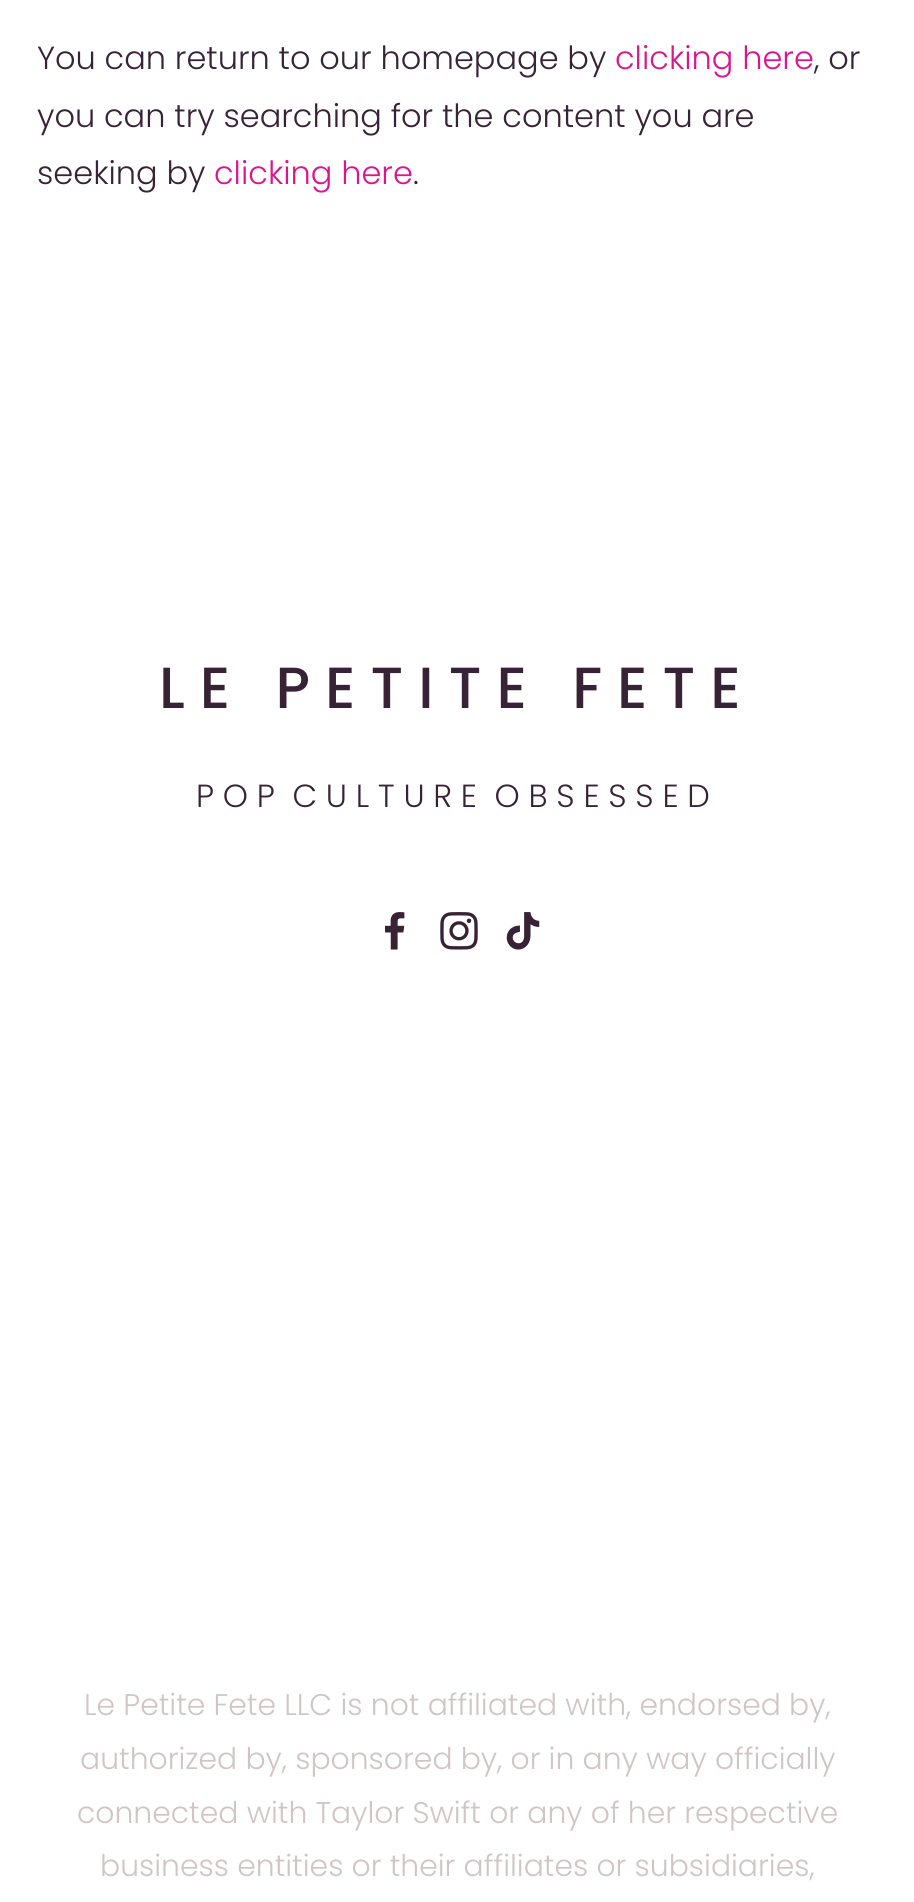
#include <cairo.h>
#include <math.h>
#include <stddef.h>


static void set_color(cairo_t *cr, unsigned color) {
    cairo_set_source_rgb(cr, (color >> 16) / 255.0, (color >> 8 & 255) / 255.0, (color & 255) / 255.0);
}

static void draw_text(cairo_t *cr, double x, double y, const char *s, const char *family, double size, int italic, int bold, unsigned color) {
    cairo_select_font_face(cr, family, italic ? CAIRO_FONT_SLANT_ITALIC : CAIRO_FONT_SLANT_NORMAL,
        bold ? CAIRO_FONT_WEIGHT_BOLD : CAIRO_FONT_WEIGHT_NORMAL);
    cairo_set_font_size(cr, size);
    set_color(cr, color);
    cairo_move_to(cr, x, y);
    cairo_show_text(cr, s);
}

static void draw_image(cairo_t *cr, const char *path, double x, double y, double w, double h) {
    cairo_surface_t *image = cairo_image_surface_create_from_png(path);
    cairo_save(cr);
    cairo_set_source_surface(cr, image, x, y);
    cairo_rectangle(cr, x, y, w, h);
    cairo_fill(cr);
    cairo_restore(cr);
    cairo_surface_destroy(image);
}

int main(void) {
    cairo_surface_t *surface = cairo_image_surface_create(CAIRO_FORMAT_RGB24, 914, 1902);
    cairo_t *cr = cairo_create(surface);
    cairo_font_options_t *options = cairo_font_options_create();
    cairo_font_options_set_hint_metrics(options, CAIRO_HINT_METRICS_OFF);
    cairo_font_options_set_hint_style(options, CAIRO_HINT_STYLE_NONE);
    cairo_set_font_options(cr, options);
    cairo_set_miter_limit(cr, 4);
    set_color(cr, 0xFFFFFF);
    cairo_paint(cr);
    draw_text(cr, 37, 69, "You can return to our homepage by", "Poppins Light", 32, 0, 0, 0x382336);
    draw_text(cr, 615, 69, "clicking here", "Poppins Light", 32, 0, 0, 0xDB158B);
    draw_text(cr, 814, 69, ", or", "Poppins Light", 32, 0, 0, 0x382336);
    draw_text(cr, 37, 127, "you can try searching for the content you are", "Poppins Light", 32, 0, 0, 0x382336);
    draw_text(cr, 37, 184, "seeking by", "Poppins Light", 32, 0, 0, 0x382336);
    draw_text(cr, 214, 184, "clicking here", "Poppins Light", 32, 0, 0, 0xDB158B);
    draw_text(cr, 413, 184, ".", "Poppins Light", 32, 0, 0, 0x382336);
    draw_text(cr, 159, 708, "L E   P E T I T E   F E T E", "Poppins Medium", 58, 0, 0, 0x382336);
    draw_text(cr, 196, 807, "P O P  C U L T U R E  O B S E S S E D", "Poppins Light", 32, 0, 0, 0x382336);
    draw_image(cr, "assets/img1.png", 385, 912, 20, 38);
    draw_image(cr, "assets/img2.png", 440, 912, 38, 38);
    draw_image(cr, "assets/img3.png", 506, 912, 34, 38);
    draw_text(cr, 84, 1715, "Le Petite Fete LLC is not affiliated with, endorsed by,", "Poppins Light", 29.85, 0, 0, 0xD0C4C4);
    draw_text(cr, 80, 1769, "authorized by, sponsored by, or in any way officially", "Poppins Light", 29.85, 0, 0, 0xD0C4C4);
    draw_text(cr, 77, 1823, "connected with Taylor Swift or any of her respective", "Poppins Light", 29.85, 0, 0, 0xD0C4C4);
    draw_text(cr, 100, 1876, "business entities or their affiliates or subsidiaries,", "Poppins Light", 29.85, 0, 0, 0xD0C4C4);
    cairo_surface_write_to_png(surface, "output.png");
    cairo_font_options_destroy(options);
    cairo_destroy(cr);
    cairo_surface_destroy(surface);
    return 0;
}
